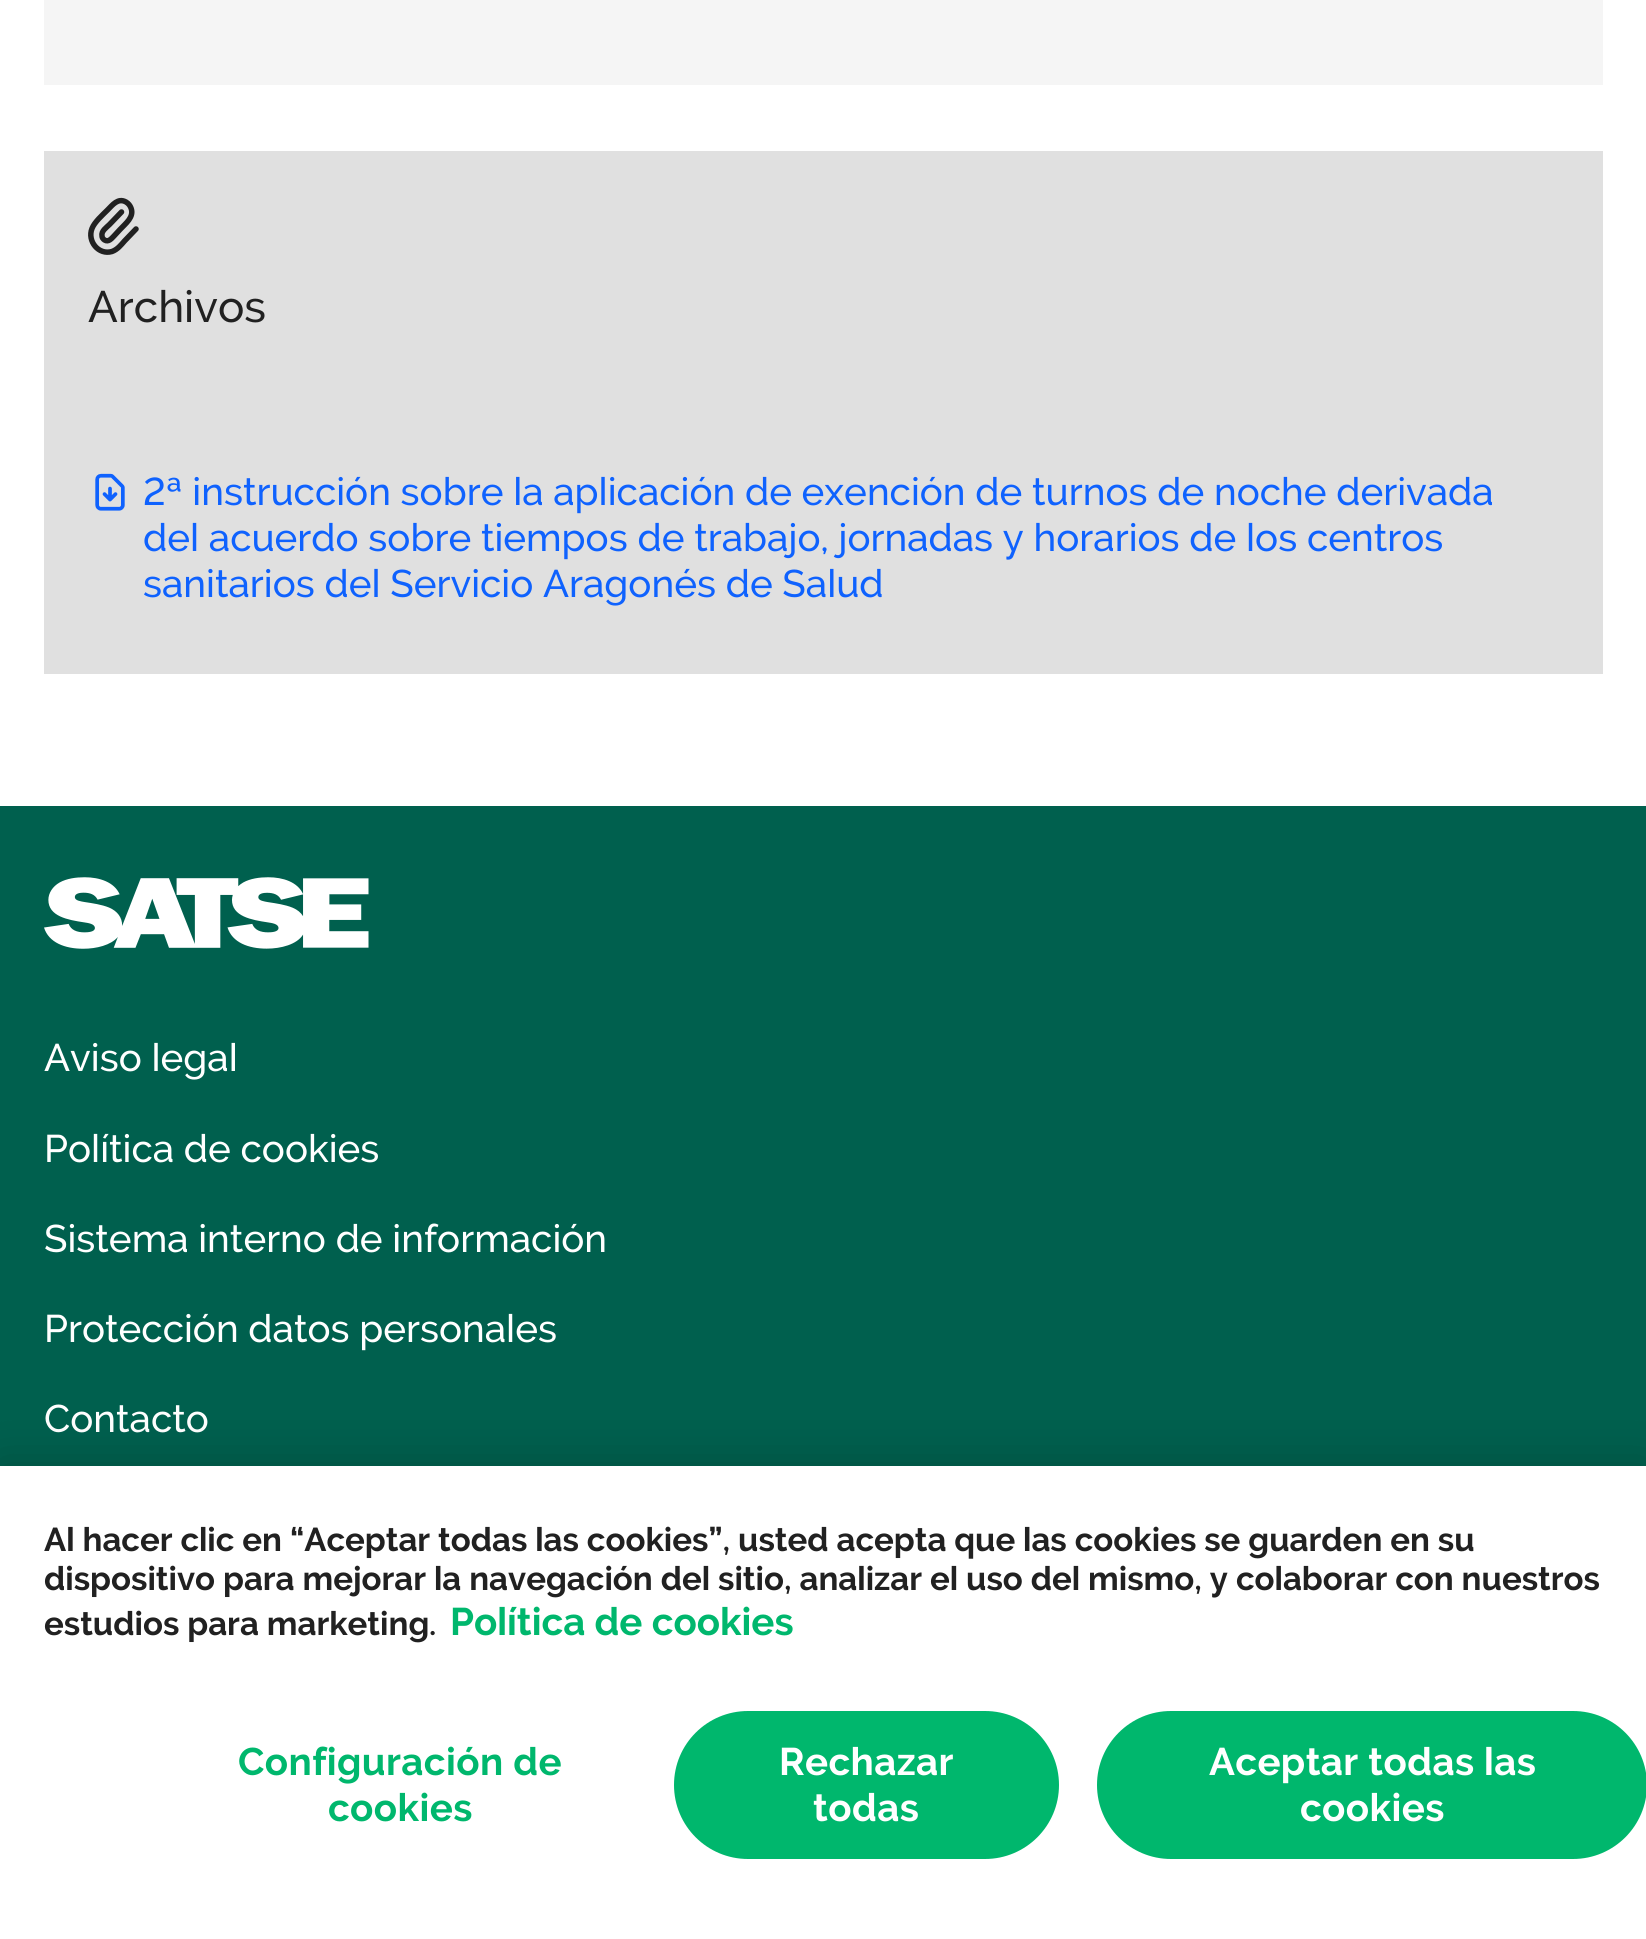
#include <cairo.h>
#include <math.h>
#include <stddef.h>


static void set_color(cairo_t *cr, unsigned color) {
    cairo_set_source_rgb(cr, (color >> 16) / 255.0, (color >> 8 & 255) / 255.0, (color & 255) / 255.0);
}

static void draw_text(cairo_t *cr, double x, double y, const char *s, const char *family, double size, int italic, int bold, unsigned color) {
    cairo_select_font_face(cr, family, italic ? CAIRO_FONT_SLANT_ITALIC : CAIRO_FONT_SLANT_NORMAL,
        bold ? CAIRO_FONT_WEIGHT_BOLD : CAIRO_FONT_WEIGHT_NORMAL);
    cairo_set_font_size(cr, size);
    set_color(cr, color);
    cairo_move_to(cr, x, y);
    cairo_show_text(cr, s);
}

static void draw_spaced(cairo_t *cr, double x, double y, const char *s, double letter, double word) {
    cairo_move_to(cr, x, y);
    while (*s) {
        char ch[5] = {0};
        int n = 0;
        do ch[n++] = *s++; while ((*s & 0xC0) == 0x80);
        cairo_show_text(cr, ch);
        cairo_rel_move_to(cr, letter + word * (*ch == ' '), 0);
    }
}

static void fill_rect(cairo_t *cr, double x, double y, double w, double h, unsigned color) {
    set_color(cr, color);
    cairo_rectangle(cr, x, y, w, h);
    cairo_fill(cr);
}

static void rounded_rect(cairo_t *cr, double x, double y, double w, double h, double r) {
    cairo_new_sub_path(cr);
    cairo_arc(cr, x + w - r, y + h - r, r, 0, M_PI / 2);
    cairo_arc(cr, x + r, y + h - r, r, M_PI / 2, M_PI);
    cairo_arc(cr, x + r, y + r, r, M_PI, 1.5 * M_PI);
    cairo_arc(cr, x + w - r, y + r, r, 1.5 * M_PI, 2 * M_PI);
    cairo_close_path(cr);
}

static void draw_shadow(cairo_t *cr, double x, double y, double w, double h, double r, double blur, double alpha) {
    cairo_push_group_with_content(cr, CAIRO_CONTENT_ALPHA);
    cairo_set_operator(cr, CAIRO_OPERATOR_SOURCE);
    for (int i = 15; i >= -15 && fmin(w, h) + blur * i / 3 > 0; i -= 2) {
        double e = blur * i / 6;
        cairo_set_source_rgba(cr, 0, 0, 0, alpha * erfc((i - 1) / 8.5) / 2);
        rounded_rect(cr, x - e, y - e, w + 2 * e, h + 2 * e, fmax(0, fmin(r + e + blur * .6, fmin(w, h) / 2 + e)));
        cairo_fill(cr);
    }
    cairo_pattern_t *soft = cairo_pop_group(cr);
    cairo_mask(cr, soft);
    cairo_pattern_destroy(soft);
}

static void draw_image(cairo_t *cr, const char *path, double x, double y, double w, double h) {
    cairo_surface_t *image = cairo_image_surface_create_from_png(path);
    cairo_save(cr);
    cairo_set_source_surface(cr, image, x, y);
    cairo_rectangle(cr, x, y, w, h);
    cairo_fill(cr);
    cairo_restore(cr);
    cairo_surface_destroy(image);
}

int main(void) {
    cairo_surface_t *surface = cairo_image_surface_create(CAIRO_FORMAT_RGB24, 1646, 1939);
    cairo_t *cr = cairo_create(surface);
    cairo_font_options_t *options = cairo_font_options_create();
    cairo_font_options_set_hint_metrics(options, CAIRO_HINT_METRICS_OFF);
    cairo_font_options_set_hint_style(options, CAIRO_HINT_STYLE_NONE);
    cairo_set_font_options(cr, options);
    cairo_set_miter_limit(cr, 4);
    set_color(cr, 0xFFFFFF);
    cairo_paint(cr);
    fill_rect(cr, 44, 0, 1559, 85, 0xF5F5F5);
    fill_rect(cr, 44, 151, 1559, 523, 0xE0E0E0);
    cairo_new_path(cr);
    cairo_move_to(cr, 121.5, 212);
    cairo_line_to(cr, 109.5, 224.5);
    cairo_curve_to(cr, 106.5, 227.5, 101, 231, 102, 236);
    cairo_curve_to(cr, 102, 237.5, 103, 239, 104.5, 240);
    cairo_curve_to(cr, 108.5, 242.5, 111.5, 238.5, 114, 236);
    cairo_line_to(cr, 120, 229.5);
    cairo_curve_to(cr, 125.5, 223.5, 134.5, 217, 131, 208);
    cairo_curve_to(cr, 130, 205.5, 128.5, 203.5, 126, 202);
    cairo_curve_to(cr, 118, 197.5, 112.5, 205, 107.5, 210);
    cairo_curve_to(cr, 102.5, 215, 94.5, 222, 92, 228.5);
    cairo_curve_to(cr, 87, 241, 98.5, 255.5, 112, 251.5);
    cairo_curve_to(cr, 117.5, 249.5, 121, 245, 124.5, 241);
    cairo_line_to(cr, 136, 229);
    set_color(cr, 0x212121);
    cairo_set_line_width(cr, 5.5);
    cairo_set_line_cap(cr, CAIRO_LINE_CAP_ROUND);
    cairo_set_line_join(cr, CAIRO_LINE_JOIN_ROUND);
    cairo_stroke(cr);
    draw_text(cr, 88, 322, "Archivos", "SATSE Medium", 44, 0, 0, 0x212121);
    draw_image(cr, "assets/img1.png", 95, 473, 30, 38);
    draw_text(cr, 143, 505, "2ª instrucción sobre la aplicación de exención de turnos de noche derivada", "SATSE Medium", 38.5, 0, 0, 0x0F62FE);
    draw_text(cr, 143, 551, "del acuerdo sobre tiempos de trabajo, jornadas y horarios de los centros", "SATSE Medium", 38.5, 0, 0, 0x0F62FE);
    draw_text(cr, 143, 597, "sanitarios del Servicio Aragonés de Salud", "SATSE Medium", 38.5, 0, 0, 0x0F62FE);
    fill_rect(cr, 0, 806, 1646, 660, 0x00604E);
    draw_image(cr, "assets/img2.png", 44, 877, 325, 72);
    draw_text(cr, 44, 1071, "Aviso legal", "SATSE Medium", 38.5, 0, 0, 0xFFFFFF);
    draw_text(cr, 44, 1162, "Política de cookies", "SATSE Medium", 38.5, 0, 0, 0xFFFFFF);
    draw_text(cr, 44, 1252, "Sistema interno de información", "SATSE Medium", 38.5, 0, 0, 0xFFFFFF);
    draw_text(cr, 44, 1342, "Protección datos personales", "SATSE Medium", 38.5, 0, 0, 0xFFFFFF);
    draw_text(cr, 44, 1432, "Contacto", "SATSE Medium", 38.5, 0, 0, 0xFFFFFF);
    set_color(cr, 0x000000);
    draw_shadow(cr, 0, 1466, 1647, 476, 0, 25, 0.2);
    fill_rect(cr, 0, 1466, 1646, 473, 0xFFFFFF);
    draw_text(cr, 44, 1551, "Al hacer clic en “Aceptar todas las cookies”, usted acepta que las cookies se guarden en su", "SATSE", 33, 0, 1, 0x212121);
    draw_text(cr, 44, 1590, "dispositivo para mejorar la navegación del sitio, analizar el uso del mismo, y colaborar con nuestros", "SATSE", 33, 0, 1, 0x212121);
    draw_text(cr, 44, 1635, "estudios para marketing.", "SATSE", 33, 0, 1, 0x212121);
    draw_text(cr, 450, 1635, "Política de cookies", "SATSE", 38.5, 0, 1, 0x00B76D);
    draw_spaced(cr, 238, 1775, "Configuración de", 0.4, 0);
    draw_spaced(cr, 328, 1821, "cookies", 0.4, 0);
    rounded_rect(cr, 674, 1711, 385, 148, 74);
    cairo_fill(cr);
    set_color(cr, 0xFFFFFF);
    draw_spaced(cr, 779, 1775, "Rechazar", 0.4, 0);
    draw_spaced(cr, 813, 1821, "todas", 0.4, 0);
    set_color(cr, 0x00B76D);
    rounded_rect(cr, 1097, 1711, 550, 148, 74);
    cairo_fill(cr);
    set_color(cr, 0xFFFFFF);
    draw_spaced(cr, 1209, 1775, "Aceptar todas las", 0.4, 0);
    draw_spaced(cr, 1300, 1821, "cookies", 0.4, 0);
    cairo_surface_write_to_png(surface, "output.png");
    cairo_font_options_destroy(options);
    cairo_destroy(cr);
    cairo_surface_destroy(surface);
    return 0;
}
